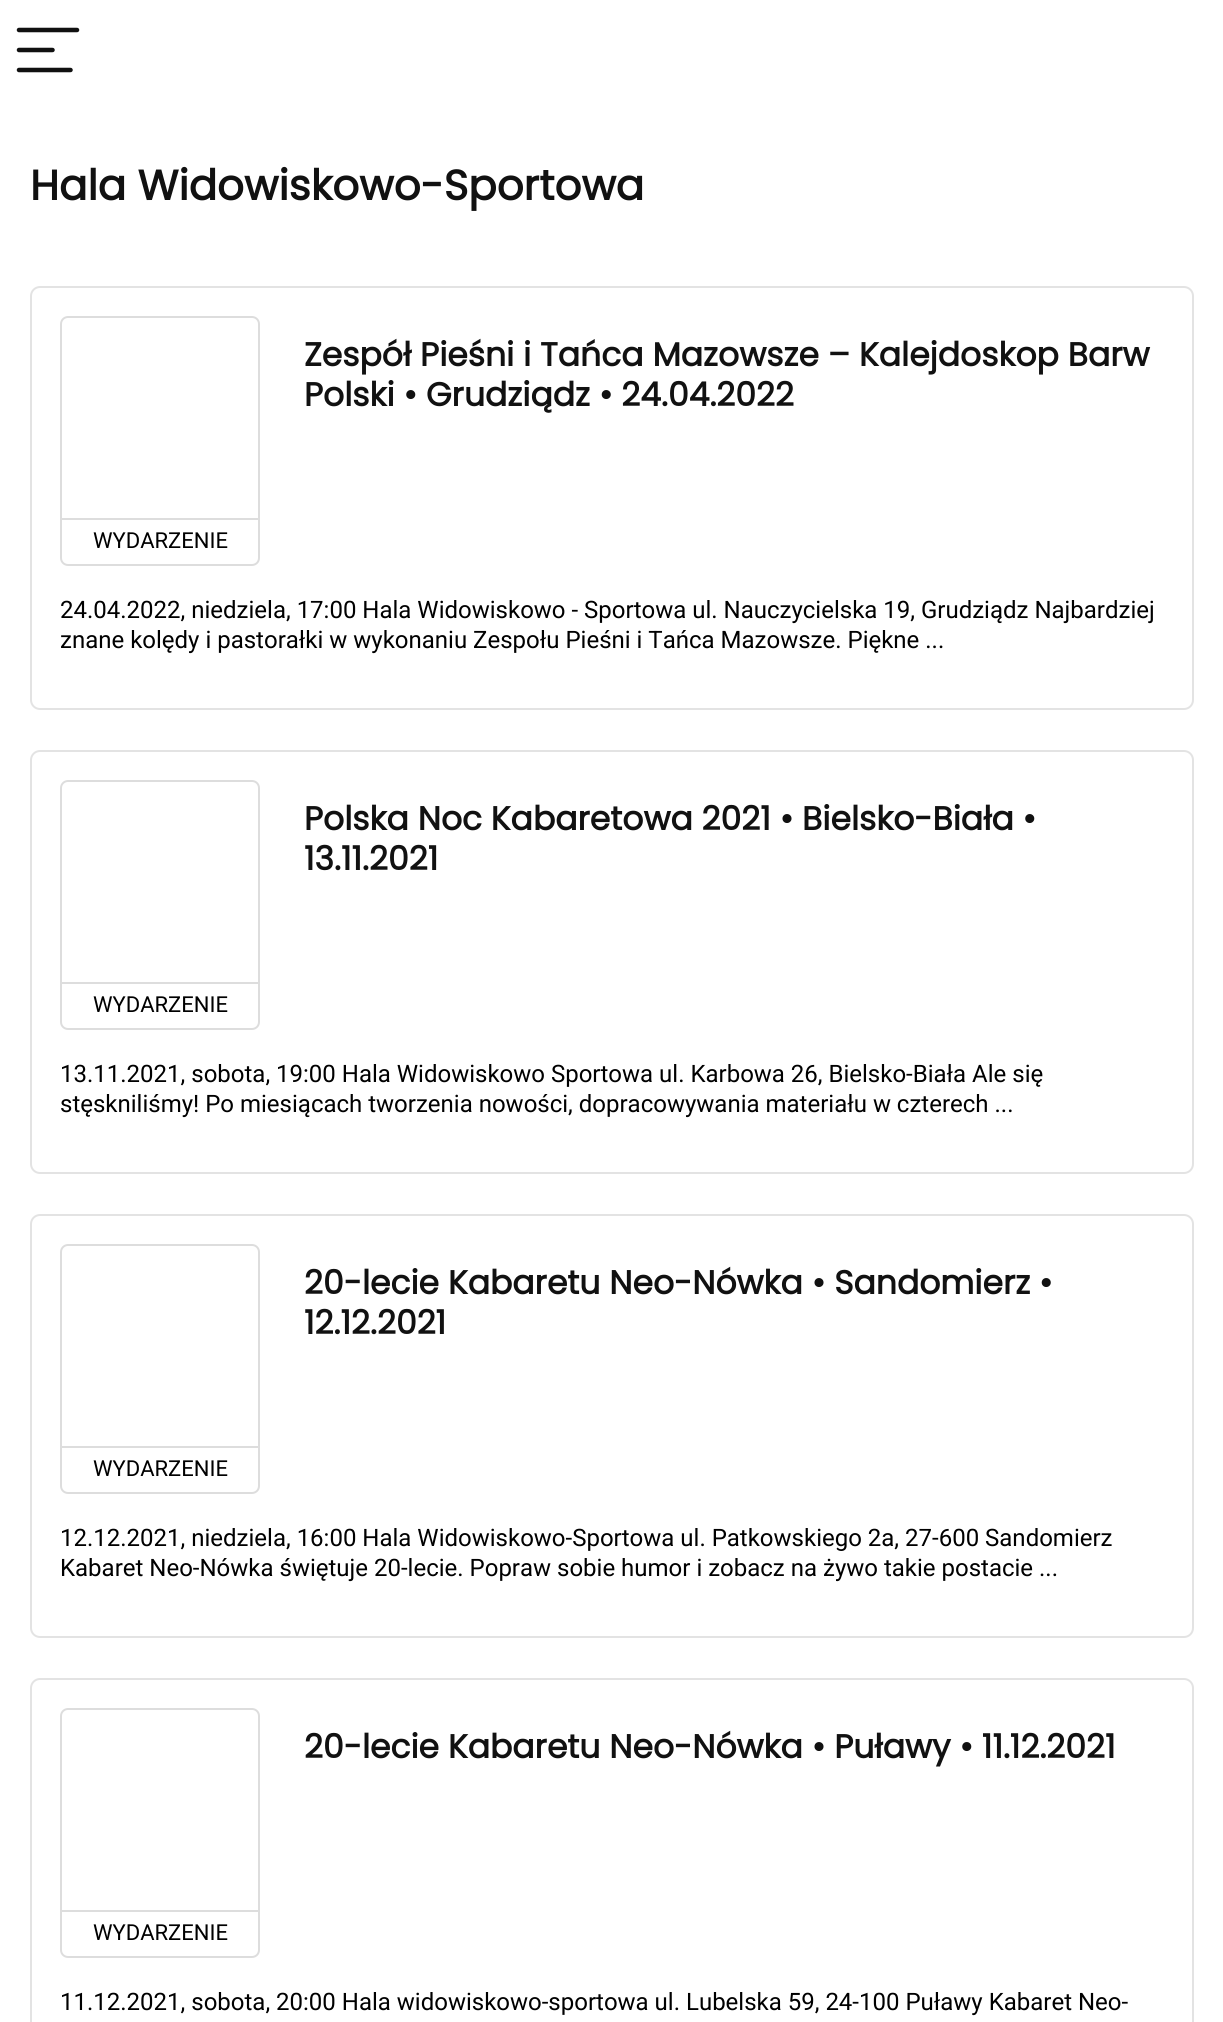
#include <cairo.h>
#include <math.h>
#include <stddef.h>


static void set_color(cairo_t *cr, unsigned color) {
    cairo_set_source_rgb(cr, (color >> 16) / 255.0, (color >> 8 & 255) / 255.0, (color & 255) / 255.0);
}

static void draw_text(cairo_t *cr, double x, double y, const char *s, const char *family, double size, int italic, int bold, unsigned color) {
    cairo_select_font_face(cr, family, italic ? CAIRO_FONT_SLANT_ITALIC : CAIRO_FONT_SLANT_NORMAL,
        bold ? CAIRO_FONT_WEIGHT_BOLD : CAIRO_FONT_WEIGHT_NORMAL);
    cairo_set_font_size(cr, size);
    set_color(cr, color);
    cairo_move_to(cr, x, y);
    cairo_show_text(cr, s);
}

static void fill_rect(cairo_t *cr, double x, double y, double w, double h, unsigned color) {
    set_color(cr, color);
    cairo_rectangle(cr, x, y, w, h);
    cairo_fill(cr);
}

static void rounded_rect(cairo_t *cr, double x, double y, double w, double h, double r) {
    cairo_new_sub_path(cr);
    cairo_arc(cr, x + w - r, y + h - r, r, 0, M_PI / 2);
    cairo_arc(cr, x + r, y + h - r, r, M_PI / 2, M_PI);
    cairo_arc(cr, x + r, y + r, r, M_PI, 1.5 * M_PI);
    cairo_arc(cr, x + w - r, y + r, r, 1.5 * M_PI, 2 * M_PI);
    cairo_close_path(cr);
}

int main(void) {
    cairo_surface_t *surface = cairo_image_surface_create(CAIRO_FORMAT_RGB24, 1223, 2022);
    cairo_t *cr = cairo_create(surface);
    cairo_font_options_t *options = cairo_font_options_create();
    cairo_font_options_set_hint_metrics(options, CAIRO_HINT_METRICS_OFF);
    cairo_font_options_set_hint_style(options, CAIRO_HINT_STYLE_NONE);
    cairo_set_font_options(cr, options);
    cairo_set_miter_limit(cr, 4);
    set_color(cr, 0xFFFFFF);
    cairo_paint(cr);
    cairo_new_path(cr);
    cairo_move_to(cr, 19, 30);
    cairo_line_to(cr, 77, 30);
    set_color(cr, 0x111111);
    cairo_set_line_width(cr, 4.5);
    cairo_set_line_cap(cr, CAIRO_LINE_CAP_ROUND);
    cairo_stroke(cr);
    cairo_new_path(cr);
    cairo_move_to(cr, 19, 50);
    cairo_line_to(cr, 52.5, 50);
    cairo_move_to(cr, 19, 70);
    cairo_line_to(cr, 70.5, 70);
    cairo_stroke(cr);
    draw_text(cr, 30, 200, "Hala Widowiskowo-Sportowa", "Poppins", 42, 0, 1, 0x111111);
    rounded_rect(cr, 31, 287, 1162, 422, 9);
    set_color(cr, 0xE3E3E3);
    cairo_set_line_width(cr, 2);
    cairo_set_line_cap(cr, CAIRO_LINE_CAP_BUTT);
    cairo_stroke(cr);
    draw_text(cr, 304, 366, "Zespół Pieśni i Tańca Mazowsze – Kalejdoskop Barw", "Poppins", 33, 0, 1, 0x111111);
    draw_text(cr, 304, 406, "Polski • Grudziądz • 24.04.2022", "Poppins", 33, 0, 1, 0x111111);
    rounded_rect(cr, 61, 317, 198, 248, 7);
    set_color(cr, 0xDDDDDD);
    cairo_stroke(cr);
    fill_rect(cr, 62, 518, 196, 2, 0xDDDDDD);
    draw_text(cr, 93, 548, "WYDARZENIE", "Roboto", 22, 0, 0, 0x000000);
    draw_text(cr, 60, 618, "24.04.2022, niedziela, 17:00 Hala Widowiskowo - Sportowa ul. Nauczycielska 19, Grudziądz Najbardziej", "Roboto", 24, 0, 0, 0x000000);
    draw_text(cr, 60, 648, "znane kolędy i pastorałki w wykonaniu Zespołu Pieśni i Tańca Mazowsze. Piękne ...", "Roboto", 24, 0, 0, 0x000000);
    rounded_rect(cr, 31, 751, 1162, 422, 9);
    set_color(cr, 0xE3E3E3);
    cairo_stroke(cr);
    draw_text(cr, 304, 830, "Polska Noc Kabaretowa 2021 • Bielsko-Biała •", "Poppins", 33, 0, 1, 0x111111);
    draw_text(cr, 304, 870, "13.11.2021", "Poppins", 33, 0, 1, 0x111111);
    rounded_rect(cr, 61, 781, 198, 248, 7);
    set_color(cr, 0xDDDDDD);
    cairo_stroke(cr);
    fill_rect(cr, 62, 982, 196, 2, 0xDDDDDD);
    draw_text(cr, 93, 1012, "WYDARZENIE", "Roboto", 22, 0, 0, 0x000000);
    draw_text(cr, 60, 1082, "13.11.2021, sobota, 19:00 Hala Widowiskowo Sportowa ul. Karbowa 26, Bielsko-Biała Ale się", "Roboto", 24, 0, 0, 0x000000);
    draw_text(cr, 60, 1112, "stęskniliśmy! Po miesiącach tworzenia nowości, dopracowywania materiału w czterech ...", "Roboto", 24, 0, 0, 0x000000);
    rounded_rect(cr, 31, 1215, 1162, 422, 9);
    set_color(cr, 0xE3E3E3);
    cairo_stroke(cr);
    draw_text(cr, 304, 1294, "20-lecie Kabaretu Neo-Nówka • Sandomierz •", "Poppins", 33, 0, 1, 0x111111);
    draw_text(cr, 304, 1334, "12.12.2021", "Poppins", 33, 0, 1, 0x111111);
    rounded_rect(cr, 61, 1245, 198, 248, 7);
    set_color(cr, 0xDDDDDD);
    cairo_stroke(cr);
    fill_rect(cr, 62, 1446, 196, 2, 0xDDDDDD);
    draw_text(cr, 93, 1476, "WYDARZENIE", "Roboto", 22, 0, 0, 0x000000);
    draw_text(cr, 60, 1546, "12.12.2021, niedziela, 16:00 Hala Widowiskowo-Sportowa ul. Patkowskiego 2a, 27-600 Sandomierz", "Roboto", 24, 0, 0, 0x000000);
    draw_text(cr, 60, 1576, "Kabaret Neo-Nówka świętuje 20-lecie. Popraw sobie humor i zobacz na żywo takie postacie ...", "Roboto", 24, 0, 0, 0x000000);
    rounded_rect(cr, 31, 1679, 1162, 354, 9);
    set_color(cr, 0xE3E3E3);
    cairo_stroke(cr);
    draw_text(cr, 304, 1758, "20-lecie Kabaretu Neo-Nówka • Puławy • 11.12.2021", "Poppins", 33, 0, 1, 0x111111);
    rounded_rect(cr, 61, 1709, 198, 248, 7);
    set_color(cr, 0xDDDDDD);
    cairo_stroke(cr);
    fill_rect(cr, 62, 1910, 196, 2, 0xDDDDDD);
    draw_text(cr, 93, 1940, "WYDARZENIE", "Roboto", 22, 0, 0, 0x000000);
    draw_text(cr, 60, 2010, "11.12.2021, sobota, 20:00 Hala widowiskowo-sportowa ul. Lubelska 59, 24-100 Puławy Kabaret Neo-", "Roboto", 24, 0, 0, 0x000000);
    cairo_surface_write_to_png(surface, "output.png");
    cairo_font_options_destroy(options);
    cairo_destroy(cr);
    cairo_surface_destroy(surface);
    return 0;
}
